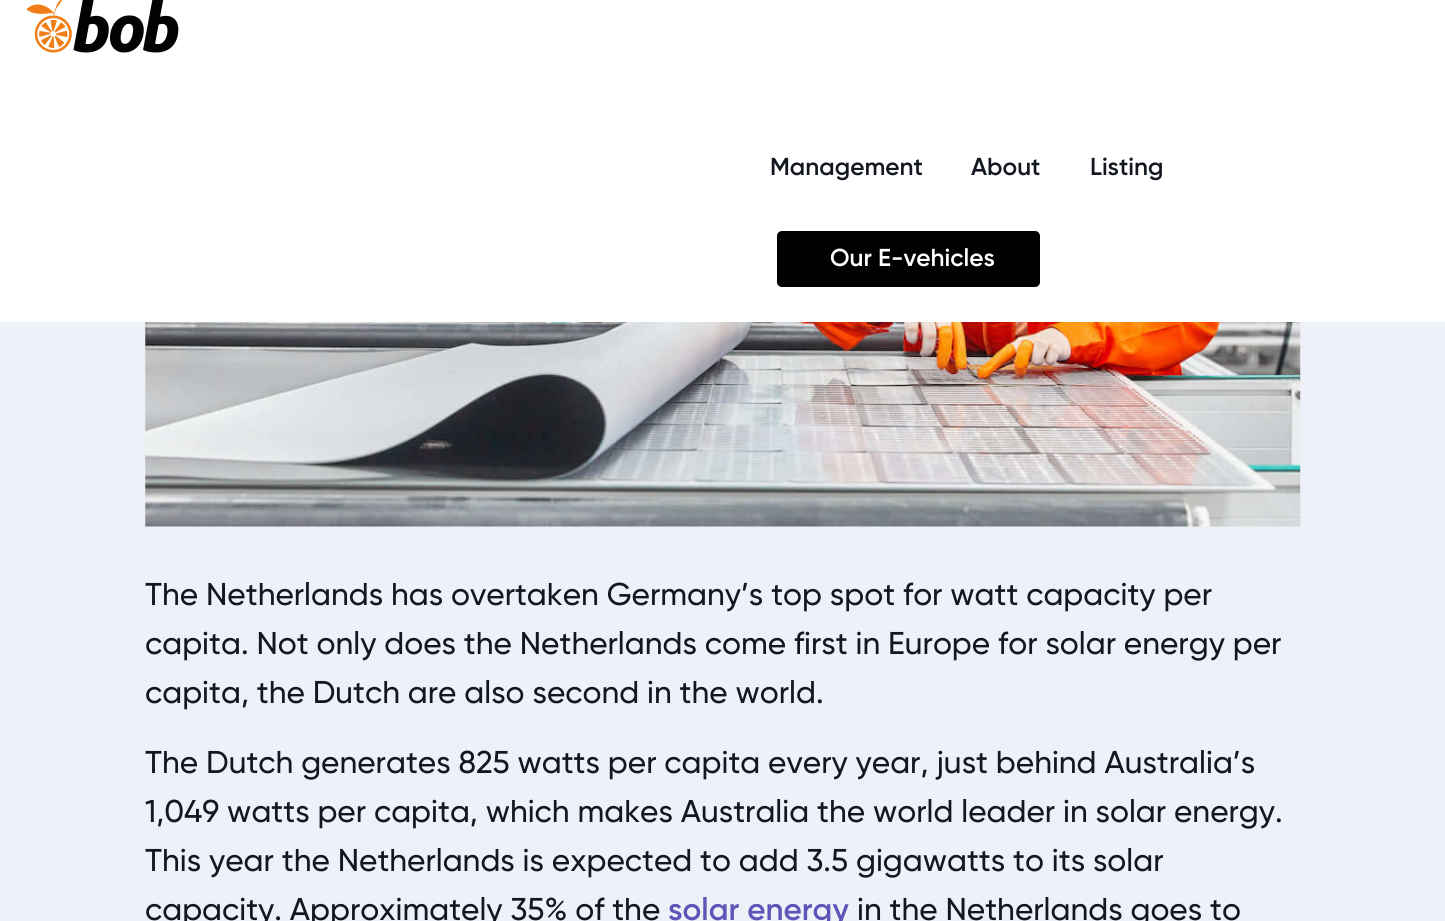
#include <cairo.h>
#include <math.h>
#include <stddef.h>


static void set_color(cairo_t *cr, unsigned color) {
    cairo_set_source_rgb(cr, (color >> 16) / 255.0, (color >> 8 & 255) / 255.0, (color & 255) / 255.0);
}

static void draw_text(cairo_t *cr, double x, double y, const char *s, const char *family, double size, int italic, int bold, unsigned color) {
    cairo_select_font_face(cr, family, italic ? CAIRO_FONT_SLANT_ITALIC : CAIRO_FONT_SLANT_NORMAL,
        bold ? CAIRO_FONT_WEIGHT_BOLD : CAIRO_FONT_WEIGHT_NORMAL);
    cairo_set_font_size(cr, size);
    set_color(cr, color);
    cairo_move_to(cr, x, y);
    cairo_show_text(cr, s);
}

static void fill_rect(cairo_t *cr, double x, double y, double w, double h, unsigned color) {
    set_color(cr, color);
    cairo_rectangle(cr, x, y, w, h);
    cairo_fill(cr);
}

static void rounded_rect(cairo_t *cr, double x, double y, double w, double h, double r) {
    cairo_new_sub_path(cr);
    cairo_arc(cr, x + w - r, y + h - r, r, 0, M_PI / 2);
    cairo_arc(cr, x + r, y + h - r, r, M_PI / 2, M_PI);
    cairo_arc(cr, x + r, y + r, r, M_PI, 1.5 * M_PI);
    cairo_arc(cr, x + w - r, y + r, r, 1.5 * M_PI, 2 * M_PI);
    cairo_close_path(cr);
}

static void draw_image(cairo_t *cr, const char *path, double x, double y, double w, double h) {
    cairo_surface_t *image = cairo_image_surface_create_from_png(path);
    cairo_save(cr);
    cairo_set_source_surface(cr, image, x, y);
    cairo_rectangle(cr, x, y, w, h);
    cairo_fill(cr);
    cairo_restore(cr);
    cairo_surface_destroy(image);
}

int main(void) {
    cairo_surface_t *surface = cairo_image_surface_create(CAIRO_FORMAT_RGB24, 1445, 921);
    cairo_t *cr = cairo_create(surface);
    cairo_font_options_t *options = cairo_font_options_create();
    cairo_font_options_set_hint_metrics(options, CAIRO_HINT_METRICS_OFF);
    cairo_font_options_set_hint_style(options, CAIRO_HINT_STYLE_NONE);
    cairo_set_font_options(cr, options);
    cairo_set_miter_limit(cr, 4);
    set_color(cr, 0xEEF2F8);
    cairo_paint(cr);
    fill_rect(cr, 0, 0, 1445, 322, 0xFFFFFF);
    draw_image(cr, "assets/img1.png", 26, 0, 153, 53);
    draw_text(cr, 770, 175, "Management", "Gilroy SemiBold", 24.5, 0, 0, 0x131720);
    draw_text(cr, 971, 175, "About", "Gilroy SemiBold", 24.5, 0, 0, 0x131720);
    draw_text(cr, 1090, 175, "Listing", "Gilroy SemiBold", 24.5, 0, 0, 0x131720);
    set_color(cr, 0x000000);
    rounded_rect(cr, 777, 231, 263, 56, 5);
    cairo_fill(cr);
    draw_text(cr, 830, 266, "Our E-vehicles", "Gilroy SemiBold", 24.5, 0, 0, 0xFFFFFF);
    draw_image(cr, "assets/img2.png", 145, 322, 1156, 205);
    draw_text(cr, 145, 605, "The Netherlands has overtaken Germany’s top spot for watt capacity per", "Gilroy Medium", 31.5, 0, 0, 0x131720);
    draw_text(cr, 145, 654, "capita. Not only does the Netherlands come first in Europe for solar energy per", "Gilroy Medium", 31.5, 0, 0, 0x131720);
    draw_text(cr, 145, 703, "capita, the Dutch are also second in the world.", "Gilroy Medium", 31.5, 0, 0, 0x131720);
    draw_text(cr, 145, 773, "The Dutch generates 825 watts per capita every year, just behind Australia’s", "Gilroy Medium", 31.5, 0, 0, 0x131720);
    draw_text(cr, 145, 822, "1,049 watts per capita, which makes Australia the world leader in solar energy.", "Gilroy Medium", 31.5, 0, 0, 0x131720);
    draw_text(cr, 145, 871, "This year the Netherlands is expected to add 3.5 gigawatts to its solar", "Gilroy Medium", 31.5, 0, 0, 0x131720);
    draw_text(cr, 145, 920, "capacity. Approximately 35% of the", "Gilroy Medium", 31.5, 0, 0, 0x131720);
    draw_text(cr, 668, 920, "solar energy", "Gilroy SemiBold", 31.5, 0, 0, 0x5E55B8);
    draw_text(cr, 857, 920, "in the Netherlands goes to", "Gilroy Medium", 31.5, 0, 0, 0x131720);
    cairo_surface_write_to_png(surface, "output.png");
    cairo_font_options_destroy(options);
    cairo_destroy(cr);
    cairo_surface_destroy(surface);
    return 0;
}
